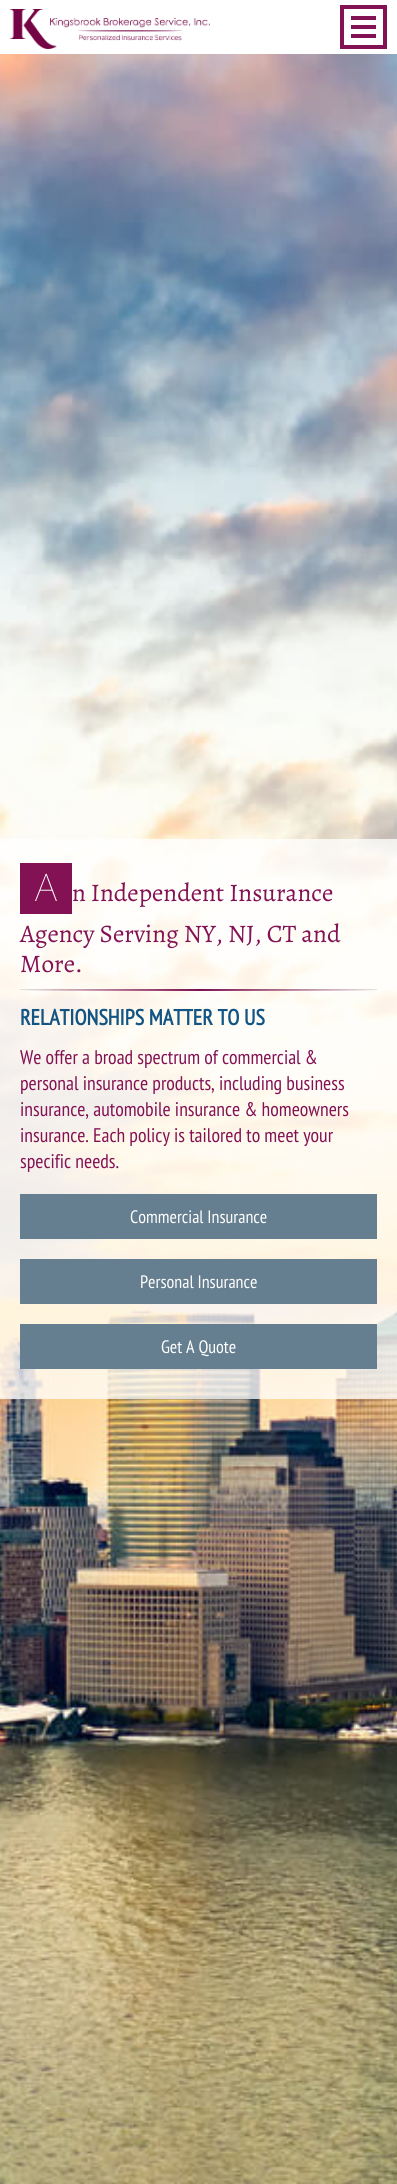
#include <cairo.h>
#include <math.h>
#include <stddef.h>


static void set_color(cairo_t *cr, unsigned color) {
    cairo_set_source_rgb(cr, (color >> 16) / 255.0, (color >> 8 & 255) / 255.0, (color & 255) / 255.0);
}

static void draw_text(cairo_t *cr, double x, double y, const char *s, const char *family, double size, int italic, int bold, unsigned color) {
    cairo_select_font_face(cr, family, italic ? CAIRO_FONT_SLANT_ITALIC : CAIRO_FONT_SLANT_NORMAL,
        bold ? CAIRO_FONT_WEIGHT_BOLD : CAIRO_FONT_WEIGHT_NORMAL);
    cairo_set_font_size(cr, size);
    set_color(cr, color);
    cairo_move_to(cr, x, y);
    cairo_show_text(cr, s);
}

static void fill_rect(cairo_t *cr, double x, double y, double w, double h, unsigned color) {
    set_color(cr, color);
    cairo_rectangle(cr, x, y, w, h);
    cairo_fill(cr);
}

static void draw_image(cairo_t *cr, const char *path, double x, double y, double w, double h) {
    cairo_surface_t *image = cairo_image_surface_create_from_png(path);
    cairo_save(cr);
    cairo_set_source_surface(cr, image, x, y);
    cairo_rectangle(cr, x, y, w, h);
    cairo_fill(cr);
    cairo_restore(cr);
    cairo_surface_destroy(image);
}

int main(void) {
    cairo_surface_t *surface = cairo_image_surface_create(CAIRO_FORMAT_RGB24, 397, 2184);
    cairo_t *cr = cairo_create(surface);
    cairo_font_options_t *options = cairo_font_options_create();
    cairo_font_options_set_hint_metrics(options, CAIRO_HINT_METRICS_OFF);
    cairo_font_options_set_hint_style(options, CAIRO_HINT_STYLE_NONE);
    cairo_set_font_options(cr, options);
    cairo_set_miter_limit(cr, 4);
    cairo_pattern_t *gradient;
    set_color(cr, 0xFFFFFF);
    cairo_paint(cr);
    draw_image(cr, "assets/img1.png", 10, 9, 200, 40);
    cairo_rectangle(cr, 342, 7, 43, 40);
    set_color(cr, 0x831254);
    cairo_set_line_width(cr, 4);
    cairo_stroke(cr);
    fill_rect(cr, 351, 16, 25, 4, 0x831254);
    fill_rect(cr, 351, 25, 25, 4, 0x831254);
    fill_rect(cr, 351, 34, 25, 4, 0x831254);
    draw_image(cr, "assets/img2.png", 0, 54, 397, 2130);
    cairo_set_source_rgba(cr, 1, 1, 1, 0.76);
    cairo_rectangle(cr, 0, 839, 397, 560);
    cairo_fill(cr);
    fill_rect(cr, 20, 863, 52, 51, 0x831254);
    draw_text(cr, 35, 901, "A", "Noto Sans Thin", 38, 0, 0, 0xFFFFFF);
    draw_text(cr, 72, 901, "n Independent Insurance", "Alegreya", 25.25, 0, 0, 0x831254);
    draw_text(cr, 20, 942, "Agency Serving NY, NJ, CT and", "Alegreya", 25.25, 0, 0, 0x831254);
    draw_text(cr, 20, 972, "More.", "Alegreya", 25.25, 0, 0, 0x831254);
    gradient = cairo_pattern_create_linear(20, 991, 377, 991);
    cairo_pattern_add_color_stop_rgba(gradient, 0, 0.514, 0.071, 0.329, 0);
    cairo_pattern_add_color_stop_rgba(gradient, 0.5, 0.514, 0.071, 0.329, 1);
    cairo_pattern_add_color_stop_rgba(gradient, 1, 0.514, 0.071, 0.329, 0);
    cairo_set_source(cr, gradient);
    cairo_pattern_destroy(gradient);
    cairo_rectangle(cr, 20, 989, 357, 2);
    cairo_fill(cr);
    cairo_set_source_rgba(cr, 0, 0, 0, 0.1);
    cairo_rectangle(cr, 20, 989, 357, 1);
    cairo_fill(cr);
    draw_text(cr, 20, 1025, "RELATIONSHIPS MATTER TO US", "PT Sans Narrow", 22, 0, 1, 0x125483);
    draw_text(cr, 20, 1064, "We offer a broad spectrum of commercial &", "PT Sans Narrow", 19.75, 0, 0, 0x831254);
    draw_text(cr, 20, 1090, "personal insurance products, including business", "PT Sans Narrow", 19.75, 0, 0, 0x831254);
    draw_text(cr, 20, 1116, "insurance, automobile insurance & homeowners", "PT Sans Narrow", 19.75, 0, 0, 0x831254);
    draw_text(cr, 20, 1142, "insurance. Each policy is tailored to meet your", "PT Sans Narrow", 19.75, 0, 0, 0x831254);
    draw_text(cr, 20, 1168, "specific needs.", "PT Sans Narrow", 19.75, 0, 0, 0x831254);
    fill_rect(cr, 20, 1194, 357, 45, 0x667F90);
    draw_text(cr, 130, 1223, "Commercial Insurance", "PT Sans Narrow", 18, 0, 0, 0xFFFFFF);
    fill_rect(cr, 20, 1259, 357, 45, 0x667F90);
    draw_text(cr, 140, 1288, "Personal Insurance", "PT Sans Narrow", 18, 0, 0, 0xFFFFFF);
    fill_rect(cr, 20, 1324, 357, 45, 0x667F90);
    draw_text(cr, 161, 1353, "Get A Quote", "PT Sans Narrow", 18, 0, 0, 0xFFFFFF);
    cairo_surface_write_to_png(surface, "output.png");
    cairo_font_options_destroy(options);
    cairo_destroy(cr);
    cairo_surface_destroy(surface);
    return 0;
}
